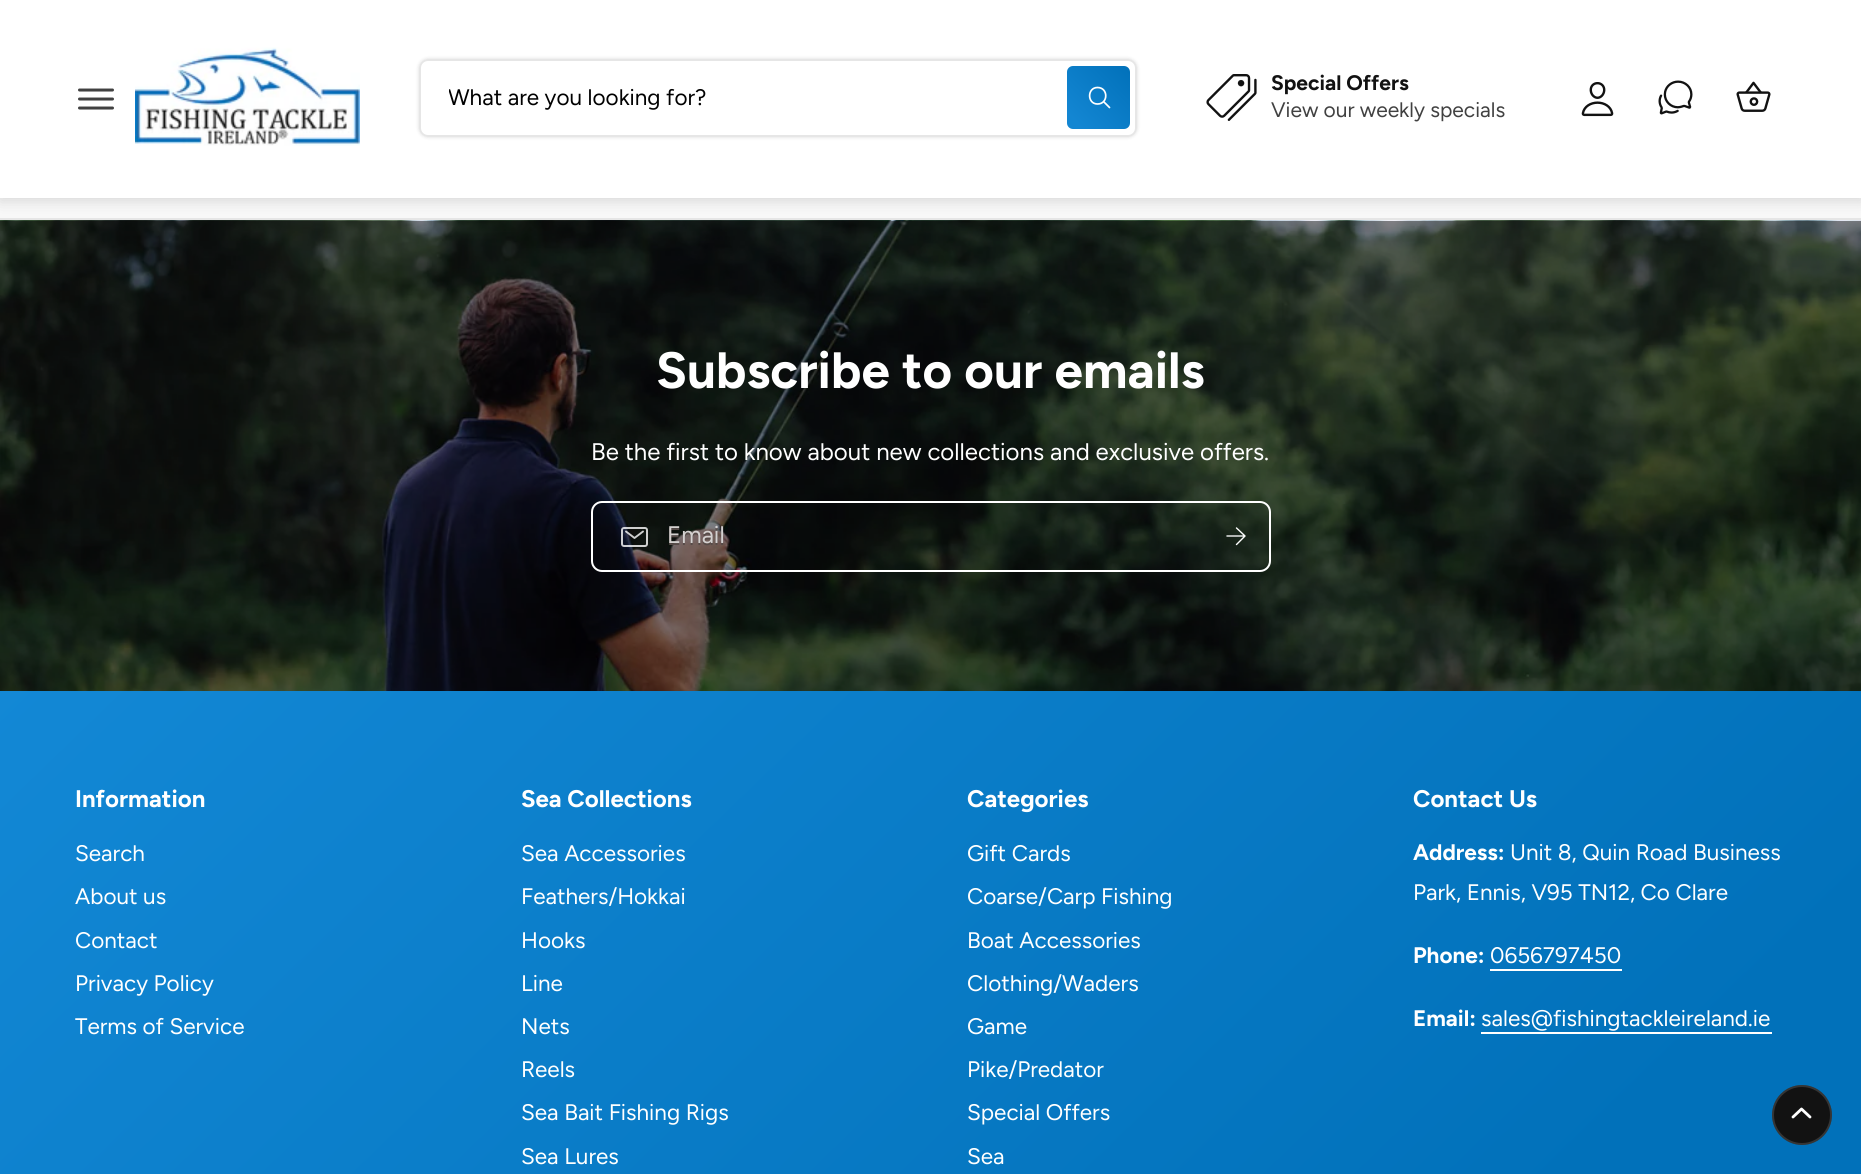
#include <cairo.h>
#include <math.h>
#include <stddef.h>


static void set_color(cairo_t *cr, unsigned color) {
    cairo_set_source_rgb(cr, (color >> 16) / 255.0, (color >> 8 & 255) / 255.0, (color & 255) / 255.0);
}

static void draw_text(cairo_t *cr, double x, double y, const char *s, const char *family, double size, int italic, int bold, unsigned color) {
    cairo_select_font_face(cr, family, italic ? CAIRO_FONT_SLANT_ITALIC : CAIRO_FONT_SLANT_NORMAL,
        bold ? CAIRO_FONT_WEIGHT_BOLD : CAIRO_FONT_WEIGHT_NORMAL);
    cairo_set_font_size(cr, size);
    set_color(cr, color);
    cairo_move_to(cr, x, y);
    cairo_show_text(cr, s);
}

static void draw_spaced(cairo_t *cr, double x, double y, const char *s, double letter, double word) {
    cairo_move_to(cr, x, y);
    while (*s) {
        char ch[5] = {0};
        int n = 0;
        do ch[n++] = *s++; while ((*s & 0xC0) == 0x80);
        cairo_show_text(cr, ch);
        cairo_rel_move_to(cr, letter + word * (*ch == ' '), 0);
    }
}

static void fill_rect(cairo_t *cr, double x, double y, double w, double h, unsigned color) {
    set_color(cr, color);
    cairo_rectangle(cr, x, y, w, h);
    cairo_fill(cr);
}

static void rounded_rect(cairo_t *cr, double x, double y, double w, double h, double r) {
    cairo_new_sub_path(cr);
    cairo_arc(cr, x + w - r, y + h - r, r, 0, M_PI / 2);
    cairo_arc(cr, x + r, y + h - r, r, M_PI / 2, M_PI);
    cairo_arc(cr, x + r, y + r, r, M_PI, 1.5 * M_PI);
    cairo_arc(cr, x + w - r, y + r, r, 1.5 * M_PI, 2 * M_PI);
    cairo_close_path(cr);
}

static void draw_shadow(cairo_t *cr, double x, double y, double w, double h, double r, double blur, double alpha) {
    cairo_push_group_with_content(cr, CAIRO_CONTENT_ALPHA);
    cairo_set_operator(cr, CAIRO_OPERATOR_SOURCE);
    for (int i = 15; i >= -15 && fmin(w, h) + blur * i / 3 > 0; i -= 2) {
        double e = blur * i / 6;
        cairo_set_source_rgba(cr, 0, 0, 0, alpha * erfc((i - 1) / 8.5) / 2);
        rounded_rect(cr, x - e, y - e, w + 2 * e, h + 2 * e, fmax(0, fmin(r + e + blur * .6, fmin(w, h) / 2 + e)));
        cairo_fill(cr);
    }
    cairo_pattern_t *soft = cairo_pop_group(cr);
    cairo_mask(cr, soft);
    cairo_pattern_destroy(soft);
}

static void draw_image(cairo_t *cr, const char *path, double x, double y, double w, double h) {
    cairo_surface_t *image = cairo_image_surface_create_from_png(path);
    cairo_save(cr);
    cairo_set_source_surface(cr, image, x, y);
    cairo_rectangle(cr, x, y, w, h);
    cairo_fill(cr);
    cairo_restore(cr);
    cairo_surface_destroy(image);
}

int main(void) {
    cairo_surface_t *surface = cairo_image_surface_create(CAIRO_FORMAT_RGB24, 1861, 1174);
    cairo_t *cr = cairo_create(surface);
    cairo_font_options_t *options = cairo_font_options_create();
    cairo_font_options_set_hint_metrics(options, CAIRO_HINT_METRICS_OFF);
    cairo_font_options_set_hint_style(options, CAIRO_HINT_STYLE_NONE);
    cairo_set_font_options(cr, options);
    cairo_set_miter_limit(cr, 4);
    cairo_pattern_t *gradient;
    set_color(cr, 0xF8F8F8);
    cairo_paint(cr);
    fill_rect(cr, 0, 218, 1861, 2, 0xE6E6E6);
    draw_image(cr, "assets/img6.png", 0, 220, 1861, 471);
    set_color(cr, 0x000000);
    draw_shadow(cr, 0, 2, 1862, 198, 0, 7.5, 0.15);
    fill_rect(cr, 0, 0, 1861, 198, 0xFFFFFF);
    cairo_new_path(cr);
    cairo_move_to(cr, 79.5, 90);
    cairo_line_to(cr, 112.5, 90);
    cairo_move_to(cr, 79.5, 99);
    cairo_line_to(cr, 112.5, 99);
    cairo_move_to(cr, 79.5, 108);
    cairo_line_to(cr, 112.5, 108);
    set_color(cr, 0x414141);
    cairo_set_line_width(cr, 3);
    cairo_set_line_cap(cr, CAIRO_LINE_CAP_ROUND);
    cairo_stroke(cr);
    draw_image(cr, "assets/img1.png", 135, 47, 225, 99);
    gradient = cairo_pattern_create_linear(1066, 128, 1130, 67);
    cairo_pattern_add_color_stop_rgba(gradient, 0.13, 0.075, 0.525, 0.824, 1);
    cairo_pattern_add_color_stop_rgba(gradient, 1, 0.004, 0.443, 0.729, 1);
    cairo_set_source(cr, gradient);
    cairo_pattern_destroy(gradient);
    rounded_rect(cr, 1067, 66, 63, 63, 6);
    cairo_fill(cr);
    cairo_new_path(cr);
    cairo_move_to(cr, 1097.5, 87.5);
    cairo_curve_to(cr, 1087, 87.5, 1087, 104, 1097.5, 104);
    cairo_curve_to(cr, 1108.5, 104, 1108.5, 87.5, 1097.5, 87.5);
    cairo_close_path(cr);
    set_color(cr, 0xFFFFFF);
    cairo_set_line_width(cr, 1.7);
    cairo_set_line_cap(cr, CAIRO_LINE_CAP_BUTT);
    cairo_stroke(cr);
    cairo_new_path(cr);
    cairo_move_to(cr, 1104, 102);
    cairo_line_to(cr, 1109.5, 107.5);
    cairo_set_line_cap(cr, CAIRO_LINE_CAP_ROUND);
    cairo_stroke(cr);
    cairo_save(cr);
    cairo_set_fill_rule(cr, CAIRO_FILL_RULE_EVEN_ODD);
    cairo_new_path(cr);
    cairo_move_to(cr, 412, 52);
    cairo_line_to(cr, 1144, 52);
    cairo_line_to(cr, 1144, 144);
    cairo_line_to(cr, 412, 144);
    cairo_close_path(cr);
    cairo_move_to(cr, 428, 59);
    cairo_line_to(cr, 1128, 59);
    cairo_curve_to(cr, 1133, 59, 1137, 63, 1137, 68);
    cairo_line_to(cr, 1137, 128);
    cairo_curve_to(cr, 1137, 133, 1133, 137, 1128, 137);
    cairo_line_to(cr, 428, 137);
    cairo_curve_to(cr, 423, 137, 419, 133, 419, 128);
    cairo_line_to(cr, 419, 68);
    cairo_curve_to(cr, 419, 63, 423, 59, 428, 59);
    cairo_close_path(cr);
    cairo_clip(cr);
    set_color(cr, 0x000000);
    draw_shadow(cr, 419, 59, 718, 78, 9, 2, 0.15);
    cairo_restore(cr);
    rounded_rect(cr, 420, 60, 716, 76, 8);
    cairo_set_source_rgba(cr, 0.004, 0.004, 0.004, 0.1);
    cairo_set_line_width(cr, 2);
    cairo_set_line_cap(cr, CAIRO_LINE_CAP_BUTT);
    cairo_stroke(cr);
    cairo_save(cr);
    cairo_rectangle(cr, 449, 84, 586, 27);
    cairo_clip(cr);
    draw_text(cr, 448, 105, "What are you looking for?", "Figtree", 22.5, 0, 0, 0x010101);
    cairo_restore(cr);
    draw_image(cr, "assets/img2.png", 1206, 74, 51, 47);
    draw_text(cr, 1271, 90, "Special Offers", "Figtree", 21, 0, 1, 0x121212);
    draw_text(cr, 1271, 117, "View our weekly specials", "Figtree", 21, 0, 0, 0x414141);
    draw_image(cr, "assets/img3.png", 1581, 82, 33, 35);
    draw_image(cr, "assets/img4.png", 1658, 80, 35, 35);
    draw_image(cr, "assets/img5.png", 1736, 81, 35, 31);
    gradient = cairo_pattern_create_linear(188, -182, 1673, 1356);
    cairo_pattern_add_color_stop_rgba(gradient, 0.11, 0.086, 0.549, 0.855, 1);
    cairo_pattern_add_color_stop_rgba(gradient, 0.91, 0.004, 0.443, 0.729, 1);
    cairo_set_source(cr, gradient);
    cairo_pattern_destroy(gradient);
    cairo_rectangle(cr, 0, 691, 1861, 1);
    cairo_fill(cr);
    cairo_select_font_face(cr, "Figtree", CAIRO_FONT_SLANT_NORMAL, CAIRO_FONT_WEIGHT_BOLD);
    cairo_set_font_size(cr, 51);
    set_color(cr, 0xFFFFFF);
    draw_spaced(cr, 656, 388, "Subscribe to our emails", 0.05, 0);
    draw_text(cr, 591, 460, "Be the first to know about new collections and exclusive offers.", "Figtree", 24, 0, 0, 0xFFFFFF);
    rounded_rect(cr, 622, 528, 25, 18, 2);
    cairo_set_source_rgba(cr, 1, 1, 1, 0.8);
    cairo_stroke(cr);
    cairo_new_path(cr);
    cairo_move_to(cr, 626, 531.5);
    cairo_line_to(cr, 634.5, 538);
    cairo_line_to(cr, 643, 531.5);
    cairo_set_line_width(cr, 1.9);
    cairo_set_line_cap(cr, CAIRO_LINE_CAP_ROUND);
    cairo_set_line_join(cr, CAIRO_LINE_JOIN_ROUND);
    cairo_stroke(cr);
    rounded_rect(cr, 592, 502, 678, 69, 10);
    set_color(cr, 0xFFFFFF);
    cairo_set_line_width(cr, 2);
    cairo_set_line_cap(cr, CAIRO_LINE_CAP_BUTT);
    cairo_set_line_join(cr, CAIRO_LINE_JOIN_MITER);
    cairo_stroke(cr);
    draw_text(cr, 667, 545, "Email", "Figtree", 24, 0, 0, 0x564B48);
    draw_text(cr, 667, 543, "Email", "Figtree", 24, 0, 0, 0xD4D1D0);
    cairo_new_path(cr);
    cairo_move_to(cr, 1236.5, 528);
    cairo_line_to(cr, 1245, 536);
    cairo_line_to(cr, 1236.5, 544.5);
    cairo_move_to(cr, 1244, 536);
    cairo_line_to(cr, 1227, 536);
    set_color(cr, 0xFFFFFF);
    cairo_set_line_width(cr, 1.4);
    cairo_set_line_cap(cr, CAIRO_LINE_CAP_ROUND);
    cairo_set_line_join(cr, CAIRO_LINE_JOIN_ROUND);
    cairo_stroke(cr);
    gradient = cairo_pattern_create_linear(188, -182, 1673, 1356);
    cairo_pattern_add_color_stop_rgba(gradient, 0.11, 0.086, 0.549, 0.855, 1);
    cairo_pattern_add_color_stop_rgba(gradient, 0.91, 0.004, 0.443, 0.729, 1);
    cairo_set_source(cr, gradient);
    cairo_pattern_destroy(gradient);
    cairo_rectangle(cr, 0, 692, 1861, 482);
    cairo_fill(cr);
    draw_text(cr, 75, 807, "Information", "Figtree", 24, 0, 1, 0xFFFFFF);
    draw_text(cr, 75, 861, "Search", "Figtree", 22.5, 0, 0, 0xFFFFFF);
    draw_text(cr, 75, 904, "About us", "Figtree", 22.5, 0, 0, 0xFFFFFF);
    draw_text(cr, 75, 948, "Contact", "Figtree", 22.5, 0, 0, 0xFFFFFF);
    draw_text(cr, 75, 991, "Privacy Policy", "Figtree", 22.5, 0, 0, 0xFFFFFF);
    draw_text(cr, 75, 1034, "Terms of Service", "Figtree", 22.5, 0, 0, 0xFFFFFF);
    draw_text(cr, 521, 807, "Sea Collections", "Figtree", 24, 0, 1, 0xFFFFFF);
    draw_text(cr, 521, 861, "Sea Accessories", "Figtree", 22.5, 0, 0, 0xFFFFFF);
    draw_text(cr, 521, 904, "Feathers/Hokkai", "Figtree", 22.5, 0, 0, 0xFFFFFF);
    draw_text(cr, 521, 948, "Hooks", "Figtree", 22.5, 0, 0, 0xFFFFFF);
    draw_text(cr, 521, 991, "Line", "Figtree", 22.5, 0, 0, 0xFFFFFF);
    draw_text(cr, 521, 1034, "Nets", "Figtree", 22.5, 0, 0, 0xFFFFFF);
    draw_text(cr, 521, 1077, "Reels", "Figtree", 22.5, 0, 0, 0xFFFFFF);
    draw_text(cr, 521, 1120, "Sea Bait Fishing Rigs", "Figtree", 22.5, 0, 0, 0xFFFFFF);
    draw_text(cr, 521, 1164, "Sea Lures", "Figtree", 22.5, 0, 0, 0xFFFFFF);
    draw_text(cr, 967, 807, "Categories", "Figtree", 24, 0, 1, 0xFFFFFF);
    draw_text(cr, 967, 861, "Gift Cards", "Figtree", 22.5, 0, 0, 0xFFFFFF);
    cairo_save(cr);
    cairo_rectangle(cr, 968, 818, 373, 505);
    cairo_clip(cr);
    draw_text(cr, 967, 904, "Coarse/Carp Fishing", "Figtree", 22.5, 0, 0, 0xFFFFFF);
    cairo_restore(cr);
    draw_text(cr, 967, 948, "Boat Accessories", "Figtree", 22.5, 0, 0, 0xFFFFFF);
    cairo_save(cr);
    cairo_rectangle(cr, 968, 818, 373, 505);
    cairo_clip(cr);
    draw_text(cr, 967, 991, "Clothing/Waders", "Figtree", 22.5, 0, 0, 0xFFFFFF);
    cairo_restore(cr);
    draw_text(cr, 967, 1034, "Game", "Figtree", 22.5, 0, 0, 0xFFFFFF);
    draw_text(cr, 967, 1077, "Pike/Predator", "Figtree", 22.5, 0, 0, 0xFFFFFF);
    draw_text(cr, 967, 1120, "Special Offers", "Figtree", 22.5, 0, 0, 0xFFFFFF);
    draw_text(cr, 967, 1164, "Sea", "Figtree", 22.5, 0, 0, 0xFFFFFF);
    draw_text(cr, 1413, 807, "Contact Us", "Figtree", 24, 0, 1, 0xFFFFFF);
    draw_text(cr, 1413, 860, "Address:", "Figtree", 22.5, 0, 1, 0xFFFFFF);
    draw_text(cr, 1510, 860, "Unit 8, Quin Road Business", "Figtree", 22.5, 0, 0, 0xFFFFFF);
    draw_text(cr, 1413, 900, "Park, Ennis, V95 TN12, Co Clare", "Figtree", 22.5, 0, 0, 0xFFFFFF);
    draw_text(cr, 1413, 963, "Phone:", "Figtree", 22.5, 0, 1, 0xFFFFFF);
    draw_text(cr, 1490, 963, "0656797450", "Figtree", 22.5, 0, 0, 0xFFFFFF);
    fill_rect(cr, 1490, 969, 132, 2, 0xFFFFFF);
    draw_text(cr, 1413, 1026, "Email:", "Figtree", 22.5, 0, 1, 0xFFFFFF);
    draw_text(cr, 1481, 1026, "sales@fishingtackleireland.ie", "Figtree", 22.5, 0, 0, 0xFFFFFF);
    fill_rect(cr, 1481, 1032, 291, 2, 0xFFFFFF);
    set_color(cr, 0x121212);
    cairo_new_path(cr);
    cairo_arc(cr, 1802, 1115, 30, 0, 2 * M_PI);
    cairo_fill(cr);
    cairo_arc(cr, 1802, 1115, 29, 0, 2 * M_PI);
    cairo_set_source_rgba(cr, 1, 1, 1, 0.15);
    cairo_set_line_width(cr, 2);
    cairo_set_line_cap(cr, CAIRO_LINE_CAP_BUTT);
    cairo_set_line_join(cr, CAIRO_LINE_JOIN_MITER);
    cairo_stroke(cr);
    cairo_new_path(cr);
    cairo_move_to(cr, 1810, 1117);
    cairo_line_to(cr, 1801.5, 1109);
    cairo_line_to(cr, 1793, 1117);
    set_color(cr, 0xFFFFFF);
    cairo_set_line_width(cr, 2.8);
    cairo_set_line_cap(cr, CAIRO_LINE_CAP_ROUND);
    cairo_set_line_join(cr, CAIRO_LINE_JOIN_ROUND);
    cairo_stroke(cr);
    cairo_surface_write_to_png(surface, "output.png");
    cairo_font_options_destroy(options);
    cairo_destroy(cr);
    cairo_surface_destroy(surface);
    return 0;
}
